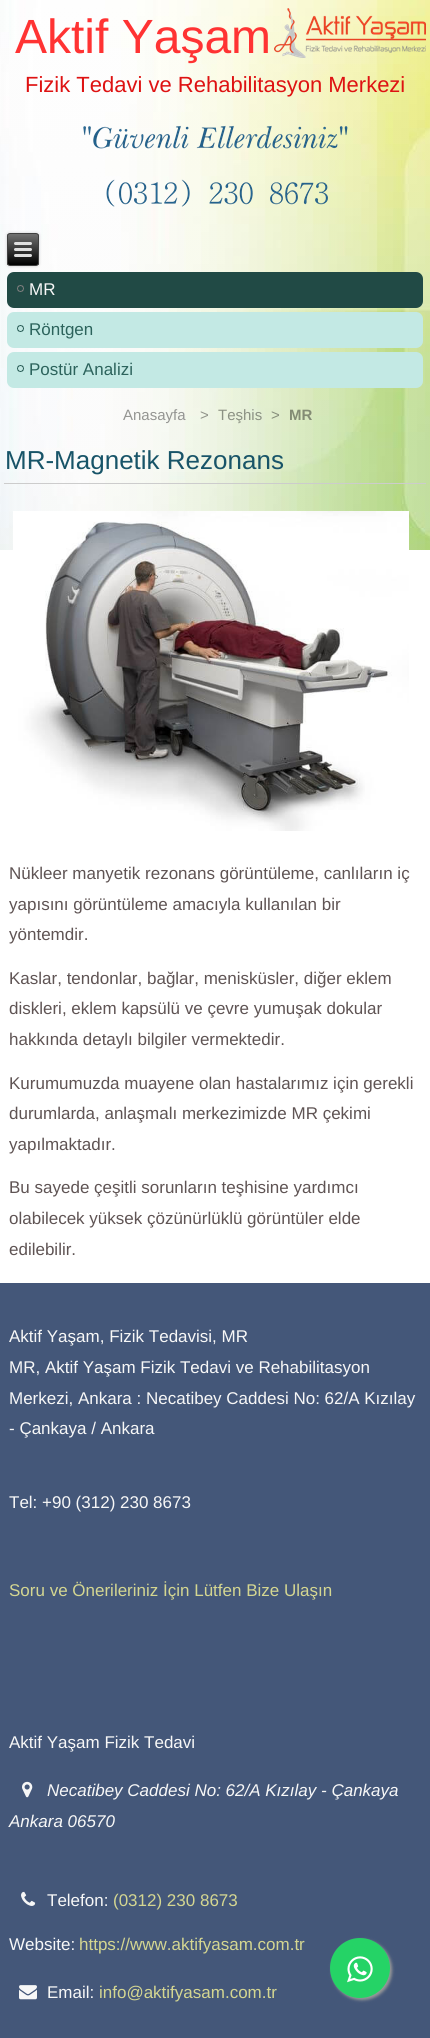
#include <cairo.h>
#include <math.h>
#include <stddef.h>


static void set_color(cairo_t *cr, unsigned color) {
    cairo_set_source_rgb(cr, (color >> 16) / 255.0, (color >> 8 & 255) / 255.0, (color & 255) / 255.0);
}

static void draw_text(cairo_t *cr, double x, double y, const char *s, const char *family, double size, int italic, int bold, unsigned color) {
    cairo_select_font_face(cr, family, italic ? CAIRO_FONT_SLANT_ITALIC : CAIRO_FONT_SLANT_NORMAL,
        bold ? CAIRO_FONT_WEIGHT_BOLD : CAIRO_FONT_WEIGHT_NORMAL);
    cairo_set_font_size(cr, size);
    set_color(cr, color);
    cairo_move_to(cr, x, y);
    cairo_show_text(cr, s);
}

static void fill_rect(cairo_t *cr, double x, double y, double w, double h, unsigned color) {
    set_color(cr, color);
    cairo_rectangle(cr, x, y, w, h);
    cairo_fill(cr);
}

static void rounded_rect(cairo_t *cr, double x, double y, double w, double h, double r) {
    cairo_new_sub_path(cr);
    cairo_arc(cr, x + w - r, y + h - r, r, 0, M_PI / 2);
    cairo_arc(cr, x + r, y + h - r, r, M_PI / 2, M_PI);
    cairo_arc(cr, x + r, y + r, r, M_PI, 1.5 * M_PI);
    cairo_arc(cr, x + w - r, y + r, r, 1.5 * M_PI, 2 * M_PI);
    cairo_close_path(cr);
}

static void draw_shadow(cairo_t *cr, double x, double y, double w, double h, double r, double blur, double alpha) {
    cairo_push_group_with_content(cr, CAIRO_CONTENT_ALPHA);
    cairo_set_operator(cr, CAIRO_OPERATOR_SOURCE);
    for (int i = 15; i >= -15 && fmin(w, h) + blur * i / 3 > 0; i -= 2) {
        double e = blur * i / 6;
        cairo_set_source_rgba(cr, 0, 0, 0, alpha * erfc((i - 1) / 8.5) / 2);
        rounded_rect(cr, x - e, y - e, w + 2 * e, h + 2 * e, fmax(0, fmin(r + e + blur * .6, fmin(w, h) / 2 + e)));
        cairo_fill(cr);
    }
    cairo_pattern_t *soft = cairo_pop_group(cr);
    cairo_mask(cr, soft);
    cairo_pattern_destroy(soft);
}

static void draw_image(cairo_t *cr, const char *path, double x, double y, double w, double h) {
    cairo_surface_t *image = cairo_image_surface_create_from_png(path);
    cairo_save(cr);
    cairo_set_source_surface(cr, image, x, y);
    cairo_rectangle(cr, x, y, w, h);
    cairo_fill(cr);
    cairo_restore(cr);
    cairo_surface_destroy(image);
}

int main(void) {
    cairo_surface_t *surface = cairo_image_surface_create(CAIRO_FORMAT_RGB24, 430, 2038);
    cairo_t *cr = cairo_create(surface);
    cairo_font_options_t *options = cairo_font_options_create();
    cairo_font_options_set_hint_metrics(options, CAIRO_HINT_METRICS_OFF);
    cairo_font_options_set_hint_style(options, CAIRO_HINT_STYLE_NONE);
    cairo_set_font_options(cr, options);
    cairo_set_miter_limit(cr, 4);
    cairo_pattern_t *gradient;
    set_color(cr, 0xFFFFFF);
    cairo_paint(cr);
    draw_image(cr, "assets/img1.png", 0, 0, 430, 550);
    draw_image(cr, "assets/img2.png", 274, 8, 152, 50);
    draw_text(cr, 15, 53, "Aktif Yaşam", "Liberation Sans", 48, 0, 0, 0xFF3333);
    draw_text(cr, 25, 92, "Fizik Tedavi ve Rehabilitasyon Merkezi", "Liberation Sans", 22, 0, 0, 0xDE1212);
    draw_image(cr, "assets/img3.png", 83, 125, 265, 82);
    set_color(cr, 0x000000);
    draw_shadow(cr, 7, 233, 32, 33, 3, 1.5, 0.2);
    cairo_save(cr);
    rounded_rect(cr, 7, 233, 32, 33, 3);
    cairo_clip(cr);
    gradient = cairo_pattern_create_linear(23, 234, 23, 265);
    cairo_pattern_add_color_stop_rgba(gradient, 0, 0.439, 0.439, 0.439, 1);
    cairo_pattern_add_color_stop_rgba(gradient, 1, 0, 0, 0, 1);
    cairo_set_source(cr, gradient);
    cairo_pattern_destroy(gradient);
    cairo_rectangle(cr, 7, 234, 32, 31);
    cairo_fill(cr);
    cairo_restore(cr);
    rounded_rect(cr, 7.5, 233.5, 31, 32, 2.5);
    set_color(cr, 0x404040);
    cairo_set_line_width(cr, 1);
    cairo_stroke(cr);
    set_color(cr, 0xE0E0E0);
    rounded_rect(cr, 14, 242, 18, 3, 1.5);
    cairo_fill(cr);
    rounded_rect(cr, 14, 248, 18, 3, 1.5);
    cairo_fill(cr);
    rounded_rect(cr, 14, 254, 18, 3, 1.5);
    cairo_fill(cr);
    set_color(cr, 0x214A45);
    rounded_rect(cr, 7, 272, 416, 36, 7);
    cairo_fill(cr);
    draw_image(cr, "assets/img4.png", 17, 285, 7, 7);
    draw_text(cr, 29, 295, "MR", "Liberation Sans", 17, 0, 0, 0xF7F7F7);
    set_color(cr, 0xC3E9E4);
    rounded_rect(cr, 7, 312, 416, 36, 7);
    cairo_fill(cr);
    draw_image(cr, "assets/img5.png", 17, 325, 7, 7);
    draw_text(cr, 29, 335, "Röntgen", "Liberation Sans", 17, 0, 0, 0x2C635C);
    set_color(cr, 0xC3E9E4);
    rounded_rect(cr, 7, 352, 416, 36, 7);
    cairo_fill(cr);
    draw_image(cr, "assets/img5.png", 17, 365, 7, 7);
    draw_text(cr, 29, 375, "Postür Analizi", "Liberation Sans", 17, 0, 0, 0x2C635C);
    draw_text(cr, 123, 420, "Anasayfa", "Liberation Sans", 15, 0, 0, 0x949592);
    draw_text(cr, 200, 420, ">", "Liberation Sans", 15, 0, 0, 0x90938A);
    draw_text(cr, 218, 420, "Teşhis", "Liberation Sans", 15, 0, 0, 0x8B9183);
    draw_text(cr, 271, 420, ">", "Liberation Sans", 15, 0, 0, 0x868E7B);
    draw_text(cr, 289, 420, "MR", "Liberation Sans", 15, 0, 1, 0x838C74);
    fill_rect(cr, 4, 483, 422, 1, 0xCCCCCC);
    draw_text(cr, 5, 469, "MR-Magnetik Rezonans", "Liberation Sans", 26, 0, 0, 0x185468);
    draw_image(cr, "assets/img6.png", 13, 511, 396, 320);
    draw_text(cr, 9, 879, "Nükleer manyetik rezonans görüntüleme, canlıların iç", "Liberation Sans", 17, 0, 0, 0x5F5454);
    draw_text(cr, 9, 910, "yapısını görüntüleme amacıyla kullanılan bir", "Liberation Sans", 17, 0, 0, 0x5F5454);
    draw_text(cr, 9, 940, "yöntemdir.", "Liberation Sans", 17, 0, 0, 0x5F5454);
    draw_text(cr, 9, 984, "Kaslar, tendonlar, bağlar, menisküsler, diğer eklem", "Liberation Sans", 17, 0, 0, 0x5F5454);
    draw_text(cr, 9, 1014, "diskleri, eklem kapsülü ve çevre yumuşak dokular", "Liberation Sans", 17, 0, 0, 0x5F5454);
    draw_text(cr, 9, 1045, "hakkında detaylı bilgiler vermektedir.", "Liberation Sans", 17, 0, 0, 0x5F5454);
    draw_text(cr, 9, 1089, "Kurumumuzda muayene olan hastalarımız için gerekli", "Liberation Sans", 17, 0, 0, 0x5F5454);
    draw_text(cr, 9, 1119, "durumlarda, anlaşmalı merkezimizde MR çekimi", "Liberation Sans", 17, 0, 0, 0x5F5454);
    draw_text(cr, 9, 1150, "yapılmaktadır.", "Liberation Sans", 17, 0, 0, 0x5F5454);
    draw_text(cr, 9, 1193, "Bu sayede çeşitli sorunların teşhisine yardımcı", "Liberation Sans", 17, 0, 0, 0x5F5454);
    draw_text(cr, 9, 1224, "olabilecek yüksek çözünürlüklü görüntüler elde", "Liberation Sans", 17, 0, 0, 0x5F5454);
    draw_text(cr, 9, 1255, "edilebilir.", "Liberation Sans", 17, 0, 0, 0x5F5454);
    fill_rect(cr, 0, 1283, 430, 755, 0x445779);
    draw_text(cr, 9, 1342, "Aktif Yaşam, Fizik Tedavisi, MR", "Liberation Sans", 17, 0, 0, 0xF7F7F7);
    draw_text(cr, 9, 1373, "MR, Aktif Yaşam Fizik Tedavi ve Rehabilitasyon", "Liberation Sans", 17, 0, 0, 0xF7F7F7);
    draw_text(cr, 9, 1404, "Merkezi, Ankara : Necatibey Caddesi No: 62/A Kızılay", "Liberation Sans", 17, 0, 0, 0xF7F7F7);
    draw_text(cr, 9, 1434, "- Çankaya / Ankara", "Liberation Sans", 17, 0, 0, 0xF7F7F7);
    draw_text(cr, 9, 1508, "Tel: +90 (312) 230 8673", "Liberation Sans", 17, 0, 0, 0xF7F7F7);
    draw_text(cr, 9, 1596, "Soru ve Önerileriniz İçin Lütfen Bize Ulaşın", "Liberation Sans", 17, 0, 0, 0xD4D691);
    draw_text(cr, 9, 1748, "Aktif Yaşam Fizik Tedavi", "Liberation Sans", 17, 0, 0, 0xF7F7F7);
    draw_image(cr, "assets/img7.png", 22, 1781, 11, 17);
    draw_text(cr, 47, 1796, "Necatibey Caddesi No: 62/A Kızılay - Çankaya", "Liberation Sans", 17, 1, 0, 0xF7F7F7);
    draw_text(cr, 9, 1827, "Ankara 06570", "Liberation Sans", 17, 1, 0, 0xF7F7F7);
    draw_image(cr, "assets/img8.png", 21, 1891, 15, 15);
    draw_text(cr, 47, 1906, "Telefon:", "Liberation Sans", 17, 0, 0, 0xF7F7F7);
    draw_text(cr, 113, 1906, "(0312) 230 8673", "Liberation Sans", 17, 0, 0, 0xD4D691);
    draw_text(cr, 9, 1950, "Website:", "Liberation Sans", 17, 0, 0, 0xF7F7F7);
    draw_text(cr, 79, 1950, "https://www.aktifyasam.com.tr", "Liberation Sans", 17, 0, 0, 0xD4D691);
    draw_image(cr, "assets/img9.png", 19, 1985, 18, 15);
    draw_text(cr, 47, 1998, "Email:", "Liberation Sans", 17, 0, 0, 0xF7F7F7);
    draw_text(cr, 99, 1998, "info@aktifyasam.com.tr", "Liberation Sans", 17, 0, 0, 0xD4D691);
    set_color(cr, 0x999999);
    draw_shadow(cr, 332, 1940, 60, 60, 30, 1.5, 1);
    set_color(cr, 0x25D366);
    cairo_arc(cr, 360, 1968, 30, 0, 2 * M_PI);
    cairo_fill(cr);
    draw_image(cr, "assets/img10.png", 347, 1956, 26, 27);
    cairo_surface_write_to_png(surface, "output.png");
    cairo_font_options_destroy(options);
    cairo_destroy(cr);
    cairo_surface_destroy(surface);
    return 0;
}
